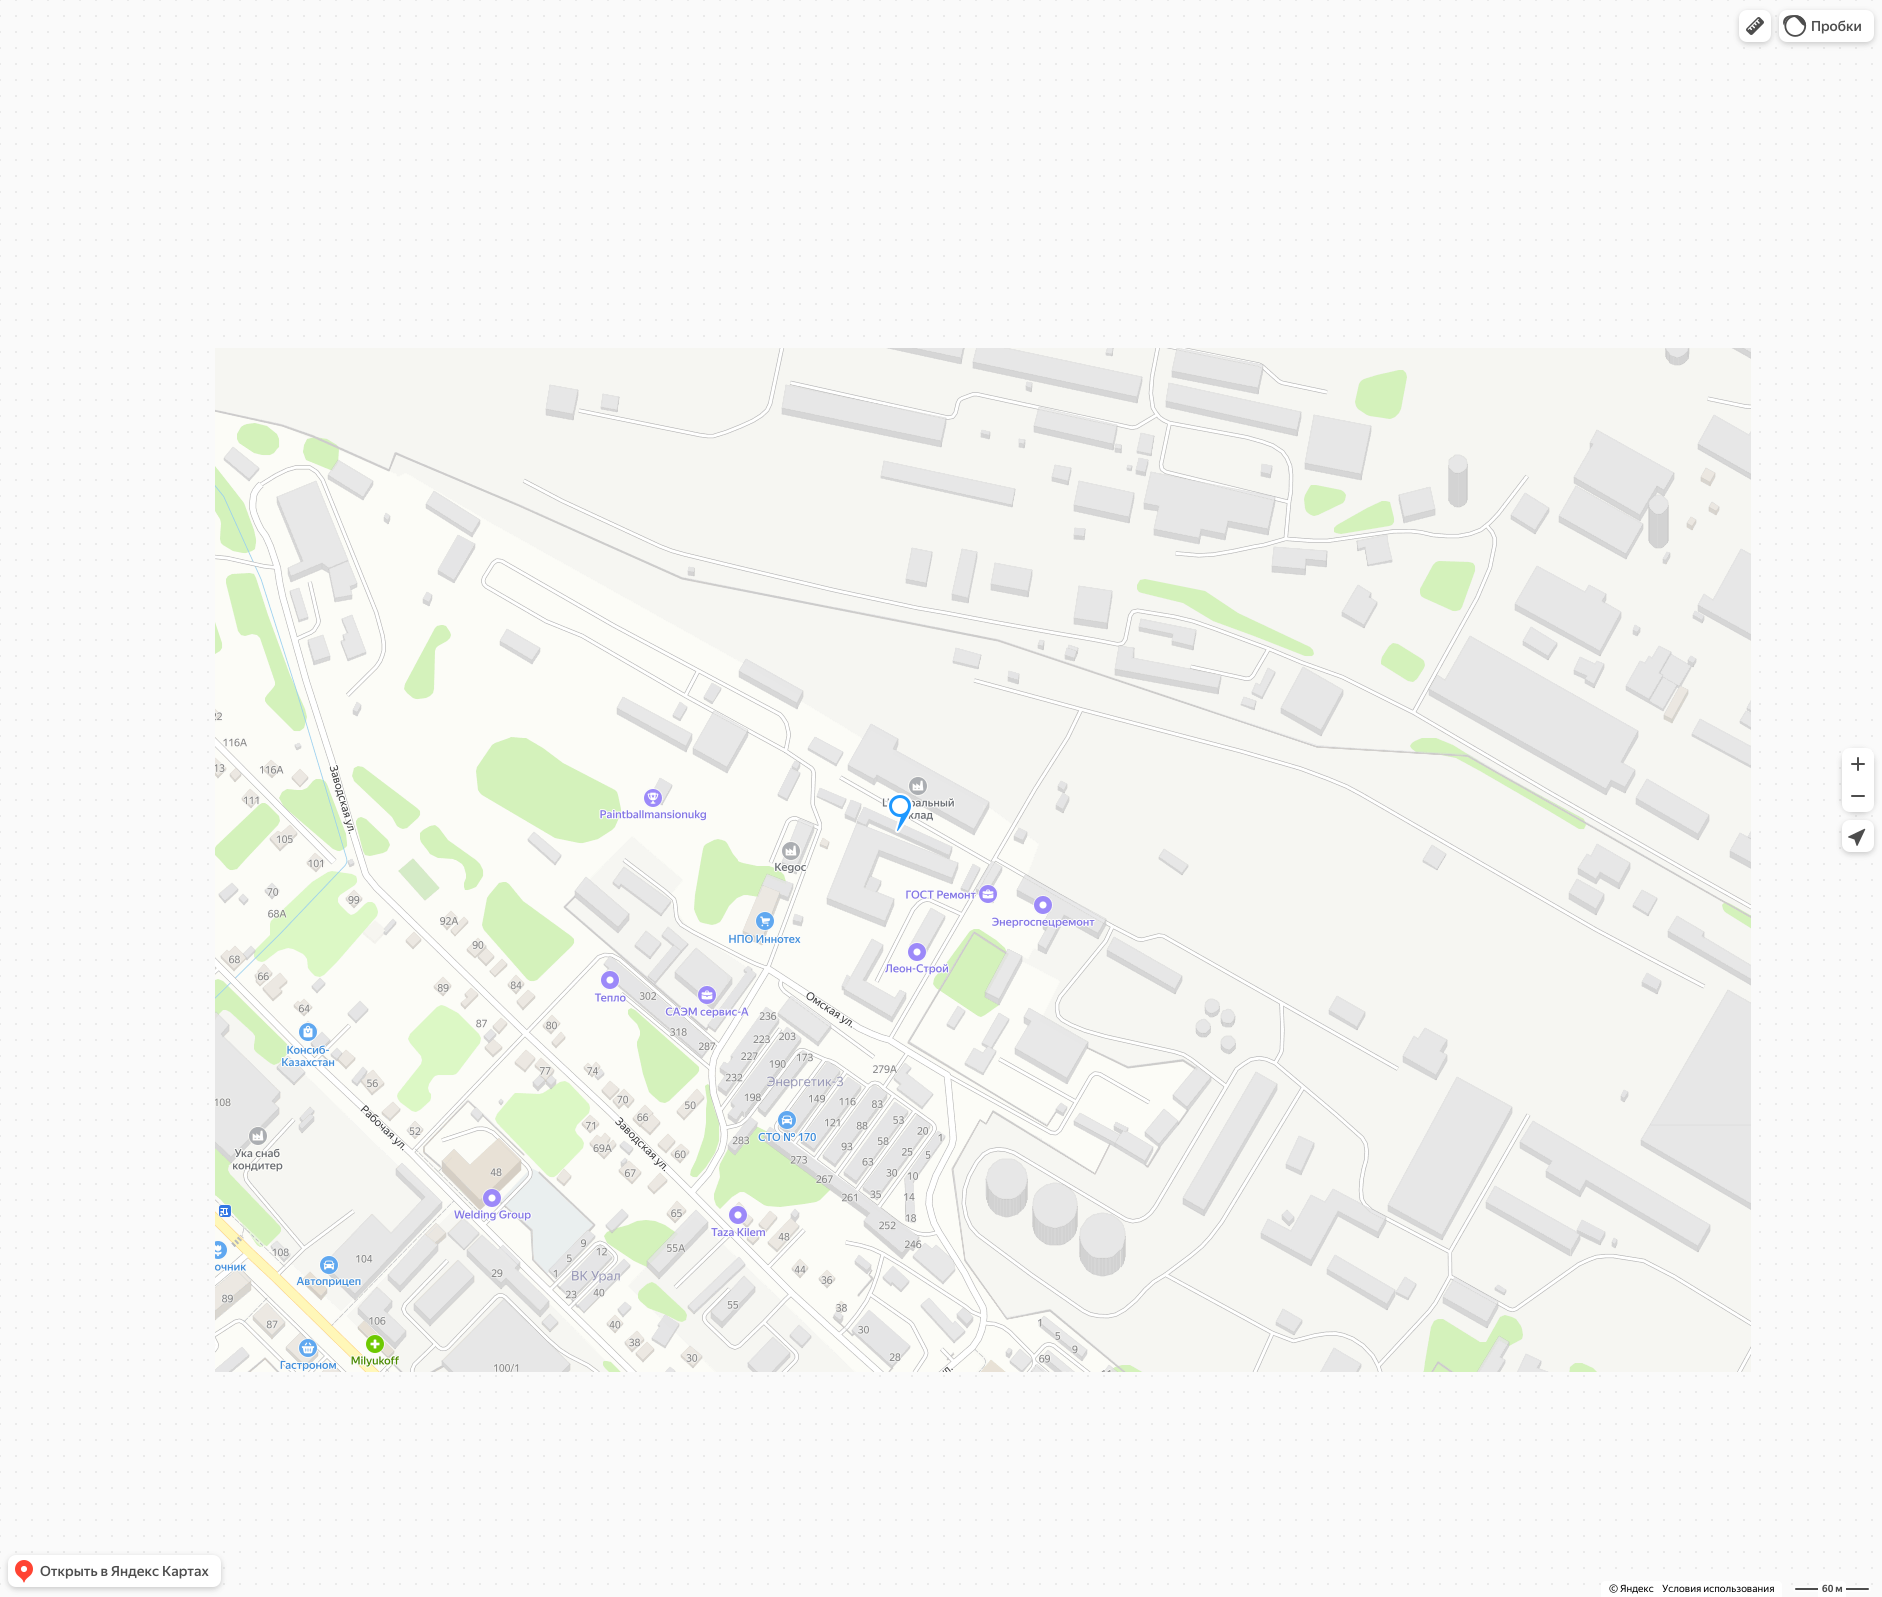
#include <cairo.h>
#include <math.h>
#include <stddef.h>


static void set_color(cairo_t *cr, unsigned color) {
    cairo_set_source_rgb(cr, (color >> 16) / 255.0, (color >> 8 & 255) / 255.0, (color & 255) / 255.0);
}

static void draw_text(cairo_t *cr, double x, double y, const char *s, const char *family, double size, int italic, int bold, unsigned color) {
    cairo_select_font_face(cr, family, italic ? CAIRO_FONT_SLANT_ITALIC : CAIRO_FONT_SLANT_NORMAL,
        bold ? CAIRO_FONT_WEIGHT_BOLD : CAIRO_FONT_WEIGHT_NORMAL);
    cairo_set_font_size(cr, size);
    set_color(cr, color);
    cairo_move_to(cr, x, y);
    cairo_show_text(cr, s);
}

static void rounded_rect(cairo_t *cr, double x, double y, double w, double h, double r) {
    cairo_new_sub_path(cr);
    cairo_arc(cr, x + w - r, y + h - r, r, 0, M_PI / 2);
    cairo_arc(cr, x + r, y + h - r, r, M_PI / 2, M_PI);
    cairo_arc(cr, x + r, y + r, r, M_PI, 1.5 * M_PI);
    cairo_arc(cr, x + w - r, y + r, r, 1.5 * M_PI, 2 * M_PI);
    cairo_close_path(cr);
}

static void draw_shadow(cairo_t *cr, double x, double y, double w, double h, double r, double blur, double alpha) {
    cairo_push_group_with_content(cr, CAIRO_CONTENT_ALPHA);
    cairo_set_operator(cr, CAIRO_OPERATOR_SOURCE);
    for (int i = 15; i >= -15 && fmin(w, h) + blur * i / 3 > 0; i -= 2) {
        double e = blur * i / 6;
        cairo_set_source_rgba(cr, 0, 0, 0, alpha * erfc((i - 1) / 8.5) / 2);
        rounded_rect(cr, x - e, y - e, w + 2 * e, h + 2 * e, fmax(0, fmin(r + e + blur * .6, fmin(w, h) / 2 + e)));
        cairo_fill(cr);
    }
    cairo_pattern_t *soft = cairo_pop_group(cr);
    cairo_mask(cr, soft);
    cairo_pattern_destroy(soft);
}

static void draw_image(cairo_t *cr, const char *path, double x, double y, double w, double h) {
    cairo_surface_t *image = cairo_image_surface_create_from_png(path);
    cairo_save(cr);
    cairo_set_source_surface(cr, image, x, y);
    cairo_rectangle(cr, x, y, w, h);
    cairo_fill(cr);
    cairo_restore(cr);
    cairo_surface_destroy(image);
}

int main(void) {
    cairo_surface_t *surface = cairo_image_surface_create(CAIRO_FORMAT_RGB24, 1882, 1597);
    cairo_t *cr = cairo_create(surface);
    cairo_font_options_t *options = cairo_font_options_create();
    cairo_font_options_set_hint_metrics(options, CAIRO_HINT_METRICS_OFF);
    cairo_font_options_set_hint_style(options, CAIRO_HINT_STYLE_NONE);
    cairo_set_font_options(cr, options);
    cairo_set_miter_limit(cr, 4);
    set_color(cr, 0xFFFFFF);
    cairo_paint(cr);
    draw_image(cr, "assets/img1.png", 0, 0, 1882, 1597);
    set_color(cr, 0x000000);
    draw_shadow(cr, 1739, 12, 32, 32, 8, 3, 0.2);
    set_color(cr, 0xFFFFFF);
    rounded_rect(cr, 1739, 10, 32, 32, 8);
    cairo_fill(cr);
    draw_image(cr, "assets/img2.png", 1746, 17, 18, 18);
    set_color(cr, 0x000000);
    draw_shadow(cr, 1779, 12, 95, 32, 8, 3, 0.2);
    set_color(cr, 0xFFFFFF);
    rounded_rect(cr, 1779, 10, 95, 32, 8);
    cairo_fill(cr);
    draw_image(cr, "assets/img3.png", 1783, 15, 24, 22);
    draw_text(cr, 1811, 31, "Пробки", "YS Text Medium", 14, 0, 0, 0x4D4D4D);
    set_color(cr, 0x000000);
    draw_shadow(cr, 1842, 750, 32, 64, 12, 3, 0.2);
    set_color(cr, 0xFFFFFF);
    cairo_new_path(cr);
    cairo_move_to(cr, 1850, 748);
    cairo_line_to(cr, 1866, 748);
    cairo_curve_to(cr, 1870.5, 748, 1874, 751.5, 1874, 756);
    cairo_line_to(cr, 1874, 780);
    cairo_line_to(cr, 1842, 780);
    cairo_line_to(cr, 1842, 756);
    cairo_curve_to(cr, 1842, 751.5, 1845.5, 748, 1850, 748);
    cairo_close_path(cr);
    cairo_fill(cr);
    draw_image(cr, "assets/img4.png", 1851, 757, 14, 14);
    cairo_new_path(cr);
    cairo_move_to(cr, 1842, 780);
    cairo_line_to(cr, 1874, 780);
    cairo_line_to(cr, 1874, 804);
    cairo_curve_to(cr, 1874, 808.5, 1870.5, 812, 1866, 812);
    cairo_line_to(cr, 1850, 812);
    cairo_curve_to(cr, 1845.5, 812, 1842, 808.5, 1842, 804);
    cairo_close_path(cr);
    cairo_fill(cr);
    draw_image(cr, "assets/img5.png", 1851, 795, 14, 2);
    set_color(cr, 0x000000);
    draw_shadow(cr, 1842, 822, 32, 32, 8, 3, 0.2);
    set_color(cr, 0xFFFFFF);
    rounded_rect(cr, 1842, 820, 32, 32, 8);
    cairo_fill(cr);
    draw_image(cr, "assets/img6.png", 1848, 828, 18, 18);
    set_color(cr, 0x000000);
    draw_shadow(cr, 8, 1557, 213, 32, 8, 3, 0.2);
    set_color(cr, 0xFFFFFF);
    rounded_rect(cr, 8, 1555, 213, 32, 8);
    cairo_fill(cr);
    draw_image(cr, "assets/img7.png", 15, 1560, 18, 23);
    draw_text(cr, 40, 1576, "Открыть в Яндекс Картах", "YS Text Medium", 14, 0, 0, 0x4D4D4D);
    set_color(cr, 0xFFFFFF);
    cairo_new_path(cr);
    cairo_move_to(cr, 1605, 1581);
    cairo_line_to(cr, 1778, 1581);
    cairo_curve_to(cr, 1780, 1581, 1782, 1583, 1782, 1585);
    cairo_line_to(cr, 1782, 1597);
    cairo_line_to(cr, 1601, 1597);
    cairo_line_to(cr, 1601, 1585);
    cairo_curve_to(cr, 1601, 1583, 1603, 1581, 1605, 1581);
    cairo_close_path(cr);
    cairo_fill(cr);
    draw_text(cr, 1609, 1592, "© Яндекс", "YS Text", 10, 0, 0, 0x000000);
    draw_text(cr, 1662, 1592, "Условия использования", "YS Text", 10, 0, 0, 0x000000);
    set_color(cr, 0xFDFDFD);
    rounded_rect(cr, 1793, 1586, 78, 6, 3);
    cairo_fill(cr);
    set_color(cr, 0x4D4D4D);
    rounded_rect(cr, 1795, 1588, 74, 2, 1);
    cairo_fill(cr);
    set_color(cr, 0xFFFFFF);
    cairo_new_path(cr);
    cairo_move_to(cr, 1822, 1581);
    cairo_line_to(cr, 1842, 1581);
    cairo_curve_to(cr, 1844, 1581, 1846, 1583, 1846, 1585);
    cairo_line_to(cr, 1846, 1597);
    cairo_line_to(cr, 1818, 1597);
    cairo_line_to(cr, 1818, 1585);
    cairo_curve_to(cr, 1818, 1583, 1820, 1581, 1822, 1581);
    cairo_close_path(cr);
    cairo_fill(cr);
    draw_text(cr, 1822, 1592, "60 м", "YS Text", 10, 0, 1, 0x4D4D4D);
    draw_image(cr, "assets/img8.png", 215, 348, 256, 256);
    draw_image(cr, "assets/img9.png", 471, 348, 256, 256);
    draw_image(cr, "assets/img10.png", 727, 348, 256, 256);
    draw_image(cr, "assets/img11.png", 983, 348, 256, 256);
    draw_image(cr, "assets/img12.png", 1239, 348, 256, 256);
    draw_image(cr, "assets/img13.png", 1495, 348, 256, 256);
    draw_image(cr, "assets/img14.png", 215, 604, 256, 256);
    draw_image(cr, "assets/img15.png", 471, 604, 256, 256);
    draw_image(cr, "assets/img16.png", 727, 604, 256, 256);
    draw_image(cr, "assets/img17.png", 983, 604, 256, 256);
    draw_image(cr, "assets/img18.png", 1239, 604, 256, 256);
    draw_image(cr, "assets/img19.png", 1495, 604, 256, 256);
    draw_image(cr, "assets/img20.png", 215, 860, 256, 256);
    draw_image(cr, "assets/img21.png", 471, 860, 256, 256);
    draw_image(cr, "assets/img22.png", 727, 860, 256, 256);
    draw_image(cr, "assets/img23.png", 983, 860, 256, 256);
    draw_image(cr, "assets/img24.png", 1239, 860, 256, 256);
    draw_image(cr, "assets/img25.png", 1495, 860, 256, 256);
    draw_image(cr, "assets/img26.png", 215, 1116, 256, 256);
    draw_image(cr, "assets/img27.png", 471, 1116, 256, 256);
    draw_image(cr, "assets/img28.png", 727, 1116, 256, 256);
    draw_image(cr, "assets/img29.png", 983, 1116, 256, 256);
    draw_image(cr, "assets/img30.png", 1239, 1116, 256, 256);
    draw_image(cr, "assets/img31.png", 1495, 1116, 256, 256);
    draw_image(cr, "assets/img32.png", 887, 793, 26, 40);
    cairo_surface_write_to_png(surface, "output.png");
    cairo_font_options_destroy(options);
    cairo_destroy(cr);
    cairo_surface_destroy(surface);
    return 0;
}
